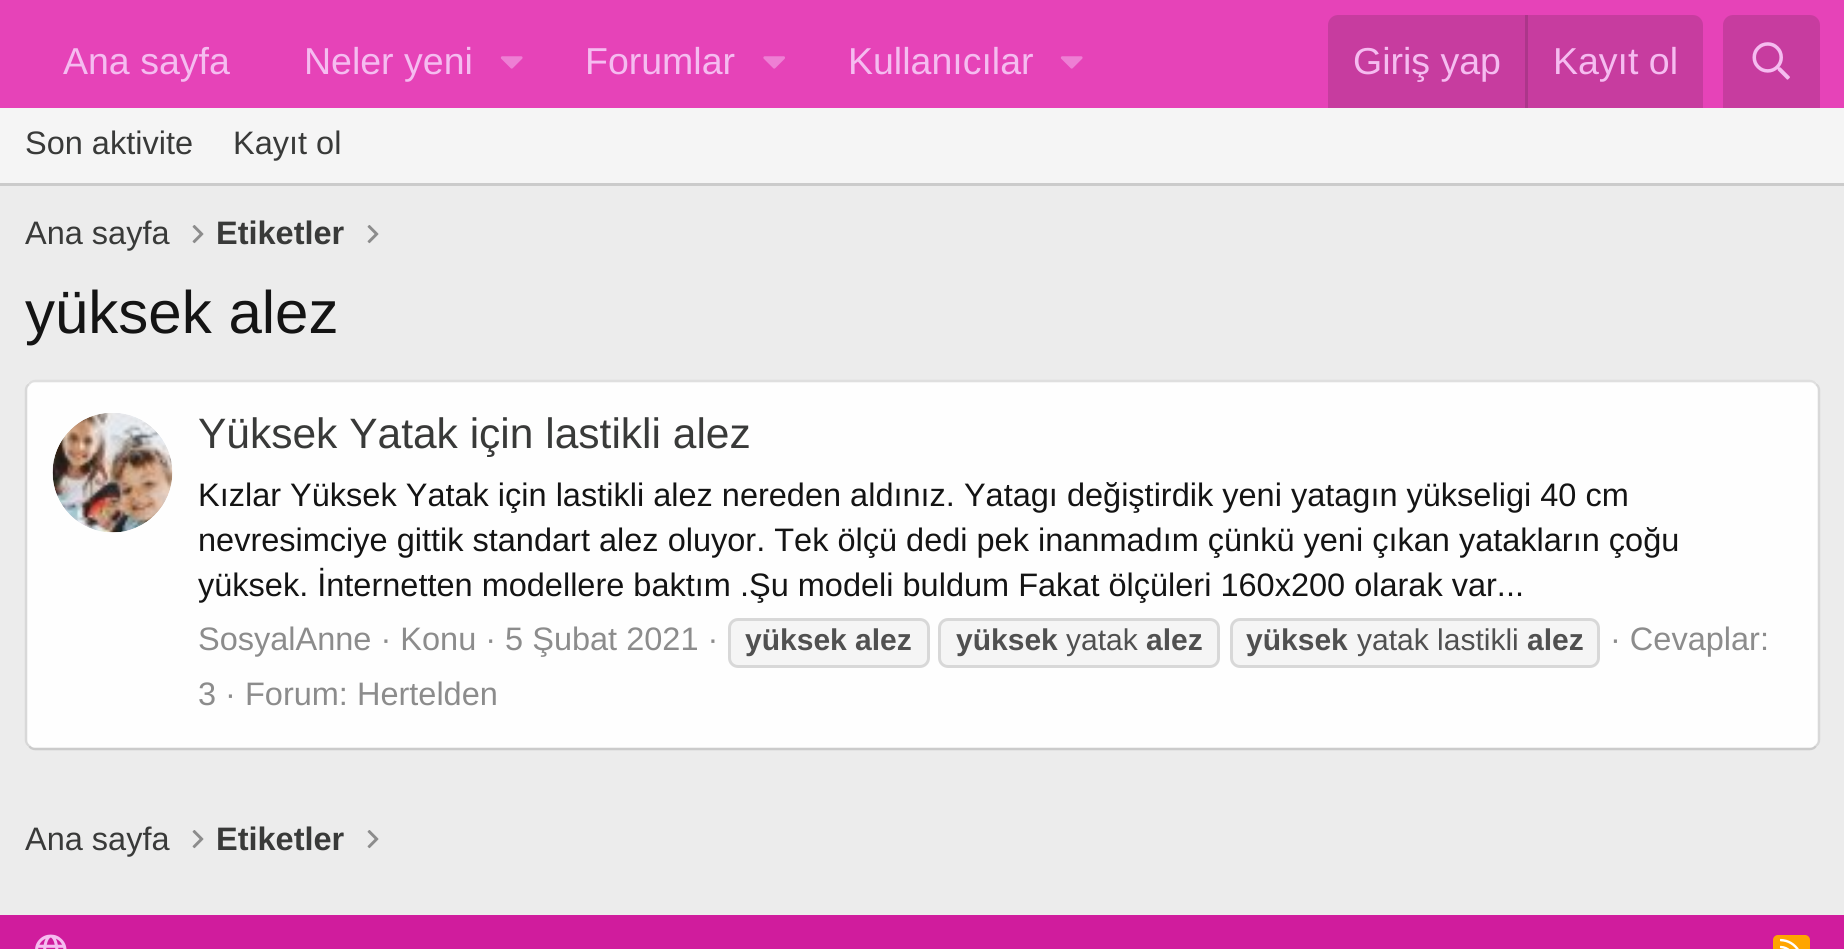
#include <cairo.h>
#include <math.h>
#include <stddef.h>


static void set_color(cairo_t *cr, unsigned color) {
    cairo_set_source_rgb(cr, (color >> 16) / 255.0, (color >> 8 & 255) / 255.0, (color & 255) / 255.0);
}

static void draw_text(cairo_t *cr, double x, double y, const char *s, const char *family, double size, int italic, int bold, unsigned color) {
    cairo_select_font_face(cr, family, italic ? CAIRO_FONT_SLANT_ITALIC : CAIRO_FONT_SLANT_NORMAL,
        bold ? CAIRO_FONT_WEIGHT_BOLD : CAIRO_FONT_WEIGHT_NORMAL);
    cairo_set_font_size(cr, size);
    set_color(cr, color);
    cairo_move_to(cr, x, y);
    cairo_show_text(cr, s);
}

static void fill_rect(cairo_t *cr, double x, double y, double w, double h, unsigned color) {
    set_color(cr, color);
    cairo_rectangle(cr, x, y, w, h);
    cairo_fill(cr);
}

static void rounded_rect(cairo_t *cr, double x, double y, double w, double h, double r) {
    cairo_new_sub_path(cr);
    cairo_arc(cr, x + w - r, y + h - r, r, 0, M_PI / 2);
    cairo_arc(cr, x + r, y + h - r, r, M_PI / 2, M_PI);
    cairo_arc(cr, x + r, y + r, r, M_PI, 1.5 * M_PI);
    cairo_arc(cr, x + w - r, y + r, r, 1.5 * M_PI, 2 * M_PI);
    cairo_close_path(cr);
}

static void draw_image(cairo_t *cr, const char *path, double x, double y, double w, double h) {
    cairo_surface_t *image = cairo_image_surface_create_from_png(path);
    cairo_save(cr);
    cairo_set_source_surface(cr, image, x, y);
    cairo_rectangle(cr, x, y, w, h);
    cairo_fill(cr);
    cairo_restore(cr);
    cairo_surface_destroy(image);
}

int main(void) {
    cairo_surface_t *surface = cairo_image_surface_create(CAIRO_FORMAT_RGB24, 1844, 949);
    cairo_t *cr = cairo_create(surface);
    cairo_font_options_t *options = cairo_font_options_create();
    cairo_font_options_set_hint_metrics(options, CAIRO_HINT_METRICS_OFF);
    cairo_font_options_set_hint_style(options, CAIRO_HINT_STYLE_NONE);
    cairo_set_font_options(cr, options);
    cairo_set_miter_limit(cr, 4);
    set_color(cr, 0xECECEC);
    cairo_paint(cr);
    fill_rect(cr, 0, 0, 1844, 108, 0xE643B8);
    draw_text(cr, 63, 74, "Ana sayfa", "Liberation Sans", 37.5, 0, 0, 0xF5BCF0);
    draw_text(cr, 304, 74, "Neler yeni", "Liberation Sans", 37.5, 0, 0, 0xF5BCF0);
    draw_image(cr, "assets/img1.png", 500, 56, 23, 13);
    draw_text(cr, 585, 74, "Forumlar", "Liberation Sans", 37.5, 0, 0, 0xF5BCF0);
    draw_image(cr, "assets/img2.png", 763, 56, 22, 13);
    draw_text(cr, 848, 74, "Kullanıcılar", "Liberation Sans", 37.5, 0, 0, 0xF5BCF0);
    draw_image(cr, "assets/img1.png", 1060, 56, 23, 13);
    set_color(cr, 0xC73C9F);
    cairo_new_path(cr);
    cairo_move_to(cr, 1338, 15);
    cairo_line_to(cr, 1693, 15);
    cairo_curve_to(cr, 1698.5, 15, 1703, 19.5, 1703, 25);
    cairo_line_to(cr, 1703, 108);
    cairo_line_to(cr, 1328, 108);
    cairo_line_to(cr, 1328, 25);
    cairo_curve_to(cr, 1328, 19.5, 1332.5, 15, 1338, 15);
    cairo_close_path(cr);
    cairo_fill(cr);
    draw_text(cr, 1353, 74, "Giriş yap", "Liberation Sans", 37.5, 0, 0, 0xF5BCF0);
    fill_rect(cr, 1525, 15, 3, 93, 0xAC368A);
    draw_text(cr, 1553, 74, "Kayıt ol", "Liberation Sans", 37.5, 0, 0, 0xF5BCF0);
    set_color(cr, 0xC73C9F);
    cairo_new_path(cr);
    cairo_move_to(cr, 1733, 15);
    cairo_line_to(cr, 1810, 15);
    cairo_curve_to(cr, 1815.5, 15, 1820, 19.5, 1820, 25);
    cairo_line_to(cr, 1820, 108);
    cairo_line_to(cr, 1723, 108);
    cairo_line_to(cr, 1723, 25);
    cairo_curve_to(cr, 1723, 19.5, 1727.5, 15, 1733, 15);
    cairo_close_path(cr);
    cairo_fill(cr);
    draw_image(cr, "assets/img3.png", 1752, 42, 38, 38);
    fill_rect(cr, 0, 108, 1844, 75, 0xF5F5F5);
    fill_rect(cr, 0, 183, 1844, 3, 0xCBCBCB);
    draw_text(cr, 25, 154, "Son aktivite", "Liberation Sans", 32.5, 0, 0, 0x393A39);
    draw_text(cr, 233, 154, "Kayıt ol", "Liberation Sans", 32.5, 0, 0, 0x393A39);
    draw_text(cr, 25, 244, "Ana sayfa", "Liberation Sans", 32.5, 0, 0, 0x393A39);
    draw_image(cr, "assets/img4.png", 192, 225, 12, 19);
    draw_text(cr, 216, 244, "Etiketler", "Liberation Sans", 32.5, 0, 1, 0x393A39);
    draw_image(cr, "assets/img4.png", 367, 225, 12, 19);
    draw_text(cr, 25, 333, "yüksek alez", "Liberation Sans", 60, 0, 0, 0x141414);
    set_color(cr, 0xFEFEFE);
    rounded_rect(cr, 25, 380, 1795, 370, 10);
    cairo_fill(cr);
    cairo_new_path(cr);
    cairo_move_to(cr, 29, 384);
    cairo_curve_to(cr, 30.5, 382, 32.5, 381, 35, 381);
    cairo_line_to(cr, 1810, 381);
    cairo_curve_to(cr, 1812.5, 381, 1814.5, 382, 1816, 384);
    set_color(cr, 0xDFDFDF);
    cairo_set_line_width(cr, 2.5);
    cairo_stroke(cr);
    cairo_new_path(cr);
    cairo_move_to(cr, 1816, 384);
    cairo_curve_to(cr, 1818, 385.5, 1819, 387.5, 1819, 390);
    cairo_line_to(cr, 1819, 740);
    cairo_curve_to(cr, 1819, 742.5, 1818, 744.5, 1816, 746);
    set_color(cr, 0xD8D8D8);
    cairo_stroke(cr);
    cairo_new_path(cr);
    cairo_move_to(cr, 1816, 746);
    cairo_curve_to(cr, 1814.5, 748, 1812.5, 749, 1810, 749);
    cairo_line_to(cr, 35, 749);
    cairo_curve_to(cr, 32.5, 749, 30.5, 748, 29, 746);
    set_color(cr, 0xCBCBCB);
    cairo_stroke(cr);
    cairo_new_path(cr);
    cairo_move_to(cr, 29, 746);
    cairo_curve_to(cr, 27, 744.5, 26, 742.5, 26, 740);
    cairo_line_to(cr, 26, 390);
    cairo_curve_to(cr, 26, 387.5, 27, 385.5, 29, 384);
    set_color(cr, 0xD8D8D8);
    cairo_stroke(cr);
    draw_image(cr, "assets/img5.png", 52, 413, 121, 120);
    draw_text(cr, 198, 448, "Yüksek Yatak için lastikli alez", "Liberation Sans", 42.5, 0, 0, 0x393A39);
    draw_text(cr, 198, 506, "Kızlar Yüksek Yatak için lastikli alez nereden aldınız. Yatagı değiştirdik yeni yatagın yükseligi 40 cm", "Liberation Sans", 32.5, 0, 0, 0x141414);
    draw_text(cr, 198, 551, "nevresimciye gittik standart alez oluyor. Tek ölçü dedi pek inanmadım çünkü yeni çıkan yatakların çoğu", "Liberation Sans", 32.5, 0, 0, 0x141414);
    draw_text(cr, 198, 596, "yüksek. İnternetten modellere baktım .Şu modeli buldum Fakat ölçüleri 160x200 olarak var...", "Liberation Sans", 32.5, 0, 0, 0x141414);
    draw_text(cr, 198, 650, "SosyalAnne · Konu · 5 Şubat 2021 ·", "Liberation Sans", 32.5, 0, 0, 0x8C8C8C);
    set_color(cr, 0xF5F5F5);
    rounded_rect(cr, 729.5, 619.5, 199, 47, 8.5);
    cairo_fill_preserve(cr);
    set_color(cr, 0xD8D8D8);
    cairo_set_line_width(cr, 3);
    cairo_stroke(cr);
    draw_text(cr, 745, 650, "yüksek alez", "Liberation Sans", 30, 0, 1, 0x505050);
    set_color(cr, 0xF5F5F5);
    rounded_rect(cr, 939.5, 619.5, 279, 47, 8.5);
    cairo_fill_preserve(cr);
    set_color(cr, 0xD8D8D8);
    cairo_stroke(cr);
    draw_text(cr, 956, 650, "yüksek", "Liberation Sans", 30, 0, 1, 0x505050);
    draw_text(cr, 1066, 650, "yatak", "Liberation Sans", 30, 0, 0, 0x505050);
    draw_text(cr, 1146, 650, "alez", "Liberation Sans", 30, 0, 1, 0x505050);
    set_color(cr, 0xF5F5F5);
    rounded_rect(cr, 1231.5, 619.5, 367, 47, 8.5);
    cairo_fill_preserve(cr);
    set_color(cr, 0xD8D8D8);
    cairo_stroke(cr);
    draw_text(cr, 1246, 650, "yüksek", "Liberation Sans", 30, 0, 1, 0x505050);
    draw_text(cr, 1357, 650, "yatak lastikli", "Liberation Sans", 30, 0, 0, 0x505050);
    draw_text(cr, 1527, 650, "alez", "Liberation Sans", 30, 0, 1, 0x505050);
    draw_text(cr, 1610, 650, "· Cevaplar:", "Liberation Sans", 32.5, 0, 0, 0x8C8C8C);
    draw_text(cr, 198, 705, "3 · Forum: Hertelden", "Liberation Sans", 32.5, 0, 0, 0x8C8C8C);
    draw_text(cr, 25, 850, "Ana sayfa", "Liberation Sans", 32.5, 0, 0, 0x393A39);
    draw_image(cr, "assets/img4.png", 192, 830, 12, 19);
    draw_text(cr, 216, 850, "Etiketler", "Liberation Sans", 32.5, 0, 1, 0x393A39);
    draw_image(cr, "assets/img4.png", 367, 830, 12, 19);
    fill_rect(cr, 0, 915, 1844, 34, 0xD01C9D);
    draw_image(cr, "assets/img6.png", 35, 934, 32, 15);
    set_color(cr, 0xFFA500);
    rounded_rect(cr, 1773, 935, 37, 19, 5);
    cairo_fill(cr);
    draw_image(cr, "assets/img7.png", 1780, 938, 19, 11);
    cairo_surface_write_to_png(surface, "output.png");
    cairo_font_options_destroy(options);
    cairo_destroy(cr);
    cairo_surface_destroy(surface);
    return 0;
}
